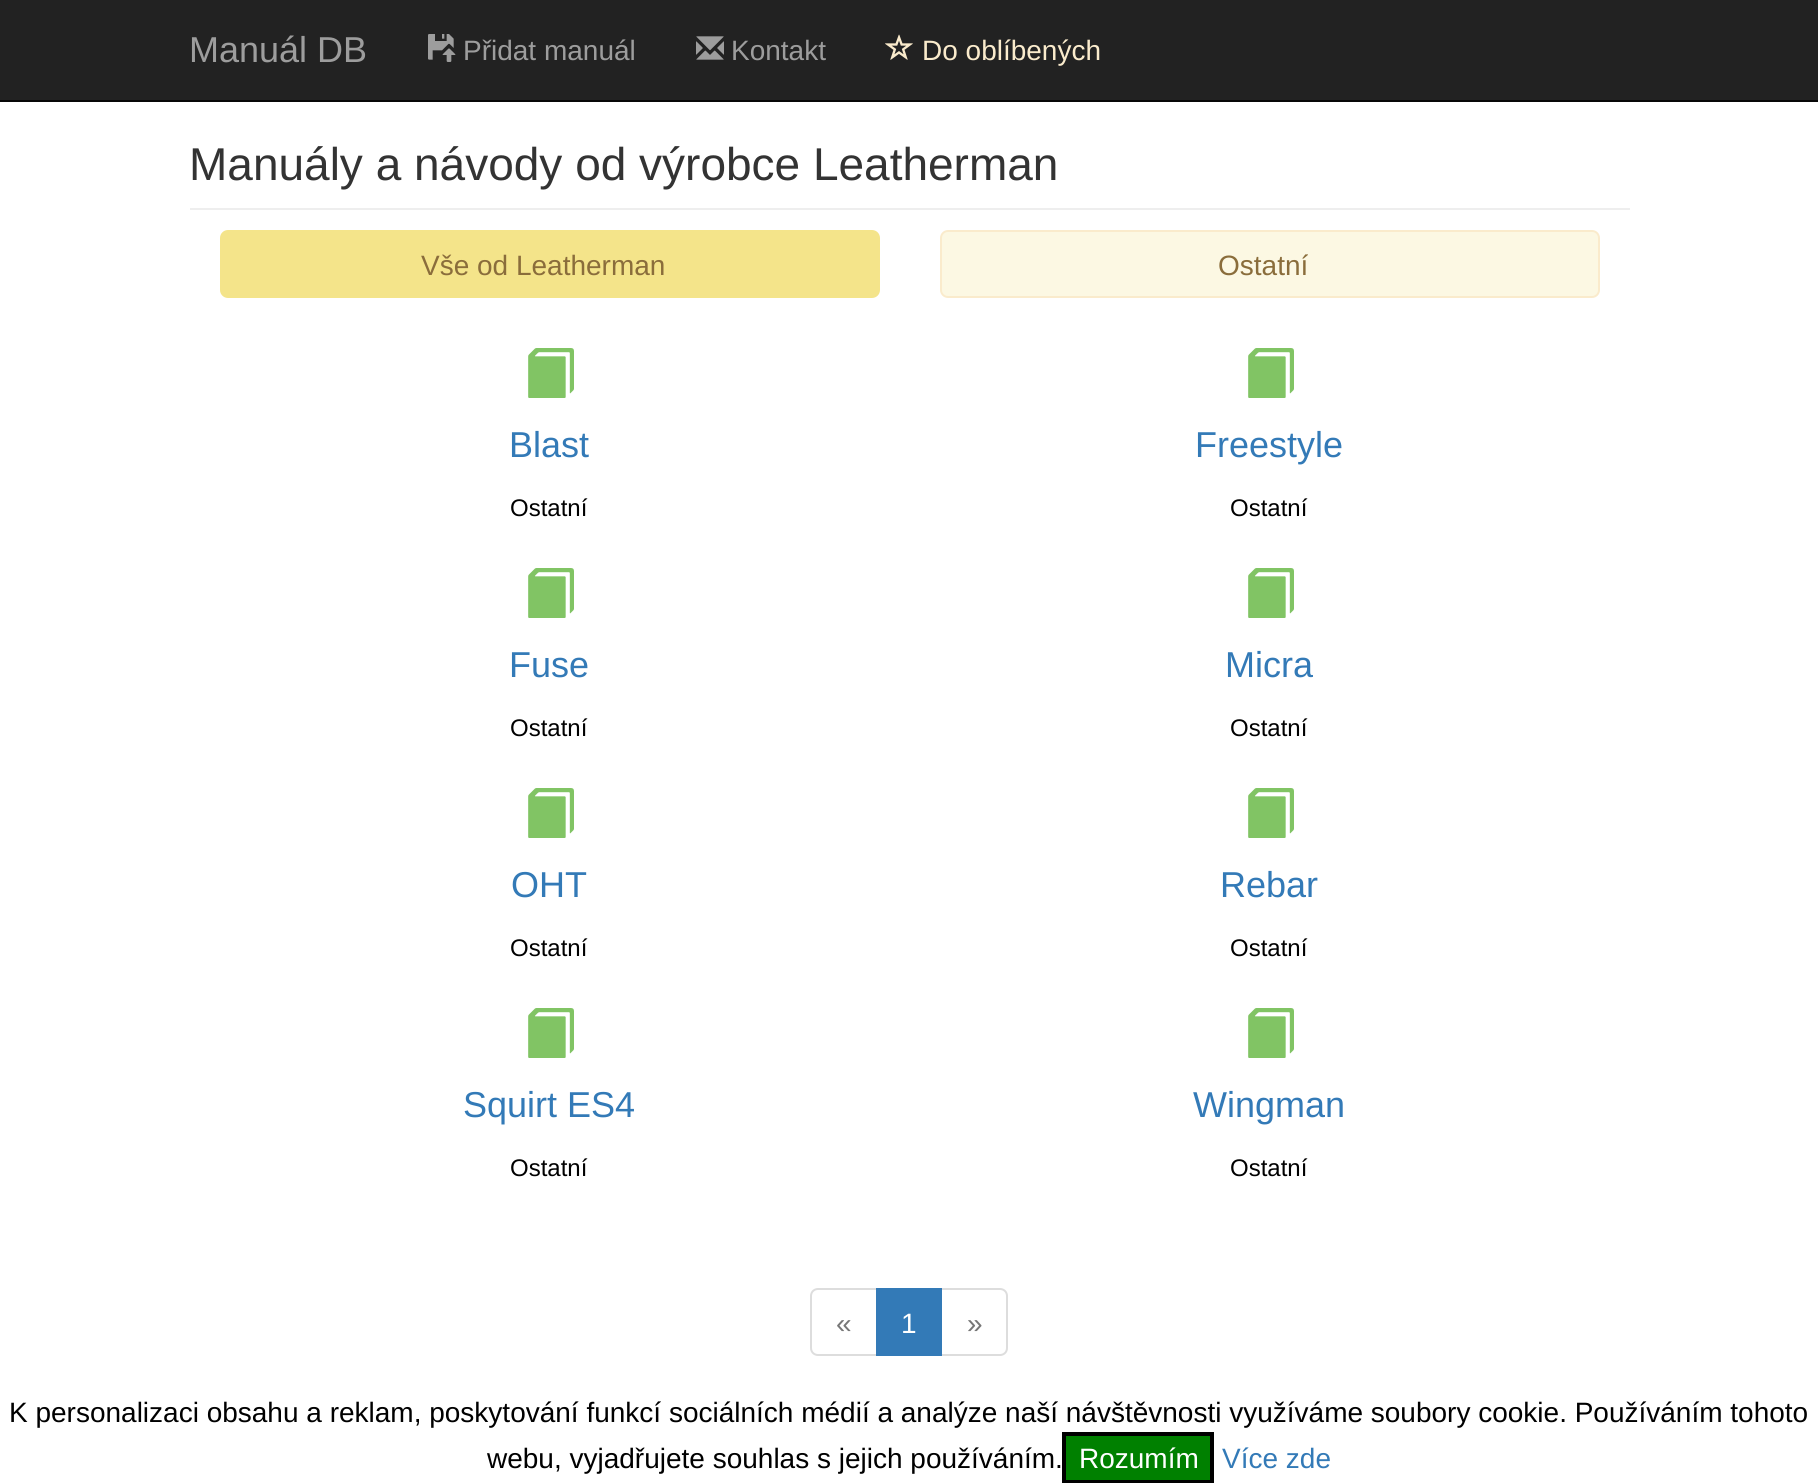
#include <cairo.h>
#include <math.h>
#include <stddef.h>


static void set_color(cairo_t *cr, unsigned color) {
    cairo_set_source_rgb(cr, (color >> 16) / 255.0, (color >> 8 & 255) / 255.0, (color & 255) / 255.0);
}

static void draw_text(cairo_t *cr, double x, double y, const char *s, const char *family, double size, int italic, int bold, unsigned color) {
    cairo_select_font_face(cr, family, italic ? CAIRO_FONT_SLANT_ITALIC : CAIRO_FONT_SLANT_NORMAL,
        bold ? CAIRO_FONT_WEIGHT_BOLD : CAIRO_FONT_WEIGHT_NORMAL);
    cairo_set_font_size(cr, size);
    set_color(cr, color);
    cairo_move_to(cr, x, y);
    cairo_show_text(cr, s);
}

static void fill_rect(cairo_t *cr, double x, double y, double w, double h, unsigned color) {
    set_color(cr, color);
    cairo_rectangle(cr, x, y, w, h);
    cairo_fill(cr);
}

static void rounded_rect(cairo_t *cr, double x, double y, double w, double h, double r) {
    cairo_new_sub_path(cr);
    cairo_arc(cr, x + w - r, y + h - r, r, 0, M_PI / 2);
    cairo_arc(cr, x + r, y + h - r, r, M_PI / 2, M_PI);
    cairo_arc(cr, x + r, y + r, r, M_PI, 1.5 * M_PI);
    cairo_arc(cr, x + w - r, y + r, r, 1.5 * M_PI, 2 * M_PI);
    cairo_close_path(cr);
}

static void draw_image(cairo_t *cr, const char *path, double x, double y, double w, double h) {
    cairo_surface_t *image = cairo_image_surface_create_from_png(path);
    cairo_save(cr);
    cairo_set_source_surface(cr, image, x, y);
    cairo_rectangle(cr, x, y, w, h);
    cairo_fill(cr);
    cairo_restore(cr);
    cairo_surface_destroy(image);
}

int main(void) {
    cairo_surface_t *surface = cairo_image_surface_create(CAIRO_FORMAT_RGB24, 1818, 1483);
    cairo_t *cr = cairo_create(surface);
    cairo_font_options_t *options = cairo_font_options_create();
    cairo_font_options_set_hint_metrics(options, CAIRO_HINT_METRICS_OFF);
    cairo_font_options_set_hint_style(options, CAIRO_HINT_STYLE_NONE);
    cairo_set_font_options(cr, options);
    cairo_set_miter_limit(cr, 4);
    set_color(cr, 0xFFFFFF);
    cairo_paint(cr);
    fill_rect(cr, 0, 0, 1818, 100, 0x222222);
    fill_rect(cr, 0, 100, 1818, 2, 0x080808);
    draw_text(cr, 189, 62, "Manuál DB", "Liberation Sans", 36, 0, 0, 0x9D9D9D);
    draw_image(cr, "assets/img1.png", 428, 34, 28, 28);
    draw_text(cr, 463, 60, "Přidat manuál", "Liberation Sans", 28, 0, 0, 0x9D9D9D);
    draw_image(cr, "assets/img2.png", 696, 36, 28, 24);
    draw_text(cr, 731, 60, "Kontakt", "Liberation Sans", 28, 0, 0, 0x9D9D9D);
    draw_image(cr, "assets/img3.png", 885, 34, 28, 26);
    draw_text(cr, 922, 60, "Do oblíbených", "Liberation Sans", 28, 0, 0, 0xFAEBCC);
    fill_rect(cr, 190, 208, 1440, 2, 0xEEEEEE);
    draw_text(cr, 189, 180, "Manuály a návody od výrobce Leatherman", "Liberation Sans", 46, 0, 0, 0x333333);
    set_color(cr, 0xF4E48A);
    rounded_rect(cr, 220, 230, 660, 68, 8);
    cairo_fill(cr);
    draw_text(cr, 421, 275, "Vše od Leatherman", "Liberation Sans", 28, 0, 0, 0x8A6D3B);
    set_color(cr, 0xFCF8E3);
    rounded_rect(cr, 941, 231, 658, 66, 7);
    cairo_fill_preserve(cr);
    set_color(cr, 0xFAEBCC);
    cairo_stroke(cr);
    draw_text(cr, 1218, 275, "Ostatní", "Liberation Sans", 28, 0, 0, 0x8A6D3B);
    draw_image(cr, "assets/img4.png", 528, 348, 46, 50);
    draw_text(cr, 509, 457, "Blast", "Liberation Sans", 36, 0, 0, 0x337AB7);
    draw_text(cr, 510, 516, "Ostatní", "Liberation Sans", 24, 0, 0, 0x000000);
    draw_image(cr, "assets/img4.png", 1248, 348, 46, 50);
    draw_text(cr, 1195, 457, "Freestyle", "Liberation Sans", 36, 0, 0, 0x337AB7);
    draw_text(cr, 1230, 516, "Ostatní", "Liberation Sans", 24, 0, 0, 0x000000);
    draw_image(cr, "assets/img4.png", 528, 568, 46, 50);
    draw_text(cr, 509, 677, "Fuse", "Liberation Sans", 36, 0, 0, 0x337AB7);
    draw_text(cr, 510, 736, "Ostatní", "Liberation Sans", 24, 0, 0, 0x000000);
    draw_image(cr, "assets/img4.png", 1248, 568, 46, 50);
    draw_text(cr, 1225, 677, "Micra", "Liberation Sans", 36, 0, 0, 0x337AB7);
    draw_text(cr, 1230, 736, "Ostatní", "Liberation Sans", 24, 0, 0, 0x000000);
    draw_image(cr, "assets/img4.png", 528, 788, 46, 50);
    draw_text(cr, 511, 897, "OHT", "Liberation Sans", 36, 0, 0, 0x337AB7);
    draw_text(cr, 510, 956, "Ostatní", "Liberation Sans", 24, 0, 0, 0x000000);
    draw_image(cr, "assets/img4.png", 1248, 788, 46, 50);
    draw_text(cr, 1220, 897, "Rebar", "Liberation Sans", 36, 0, 0, 0x337AB7);
    draw_text(cr, 1230, 956, "Ostatní", "Liberation Sans", 24, 0, 0, 0x000000);
    draw_image(cr, "assets/img4.png", 528, 1008, 46, 50);
    draw_text(cr, 463, 1117, "Squirt ES4", "Liberation Sans", 36, 0, 0, 0x337AB7);
    draw_text(cr, 510, 1176, "Ostatní", "Liberation Sans", 24, 0, 0, 0x000000);
    draw_image(cr, "assets/img4.png", 1248, 1008, 46, 50);
    draw_text(cr, 1193, 1117, "Wingman", "Liberation Sans", 36, 0, 0, 0x337AB7);
    draw_text(cr, 1230, 1176, "Ostatní", "Liberation Sans", 24, 0, 0, 0x000000);
    cairo_new_path(cr);
    cairo_move_to(cr, 818, 1289);
    cairo_line_to(cr, 877, 1289);
    cairo_line_to(cr, 877, 1355);
    cairo_line_to(cr, 818, 1355);
    cairo_curve_to(cr, 814, 1355, 811, 1352, 811, 1348);
    cairo_line_to(cr, 811, 1296);
    cairo_curve_to(cr, 811, 1292, 814, 1289, 818, 1289);
    cairo_close_path(cr);
    set_color(cr, 0xDDDDDD);
    cairo_stroke(cr);
    draw_text(cr, 836, 1333, "«", "Liberation Sans", 28, 0, 0, 0x777777);
    cairo_new_path(cr);
    cairo_move_to(cr, 941, 1289);
    cairo_line_to(cr, 1000, 1289);
    cairo_curve_to(cr, 1004, 1289, 1007, 1292, 1007, 1296);
    cairo_line_to(cr, 1007, 1348);
    cairo_curve_to(cr, 1007, 1352, 1004, 1355, 1000, 1355);
    cairo_line_to(cr, 941, 1355);
    cairo_close_path(cr);
    set_color(cr, 0xDDDDDD);
    cairo_stroke(cr);
    fill_rect(cr, 876, 1288, 66, 68, 0x337AB7);
    draw_text(cr, 901, 1333, "1", "Liberation Sans", 28, 0, 0, 0xFFFFFF);
    draw_text(cr, 967, 1333, "»", "Liberation Sans", 28, 0, 0, 0x777777);
    draw_text(cr, 9, 1422, "K personalizaci obsahu a reklam, poskytování funkcí sociálních médií a analýze naší návštěvnosti využíváme soubory cookie. Používáním tohoto", "Liberation Sans", 28, 0, 0, 0x000000);
    draw_text(cr, 487, 1468, "webu, vyjadřujete souhlas s jejich používáním.", "Liberation Sans", 28, 0, 0, 0x000000);
    set_color(cr, 0x008000);
    cairo_rectangle(cr, 1064, 1434, 148, 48);
    cairo_fill_preserve(cr);
    set_color(cr, 0x000000);
    cairo_set_line_width(cr, 4);
    cairo_stroke(cr);
    draw_text(cr, 1079, 1468, "Rozumím", "Liberation Sans", 28, 0, 0, 0xFFFFFF);
    draw_text(cr, 1222, 1468, "Více zde", "Liberation Sans", 28, 0, 0, 0x337AB7);
    cairo_surface_write_to_png(surface, "output.png");
    cairo_font_options_destroy(options);
    cairo_destroy(cr);
    cairo_surface_destroy(surface);
    return 0;
}
